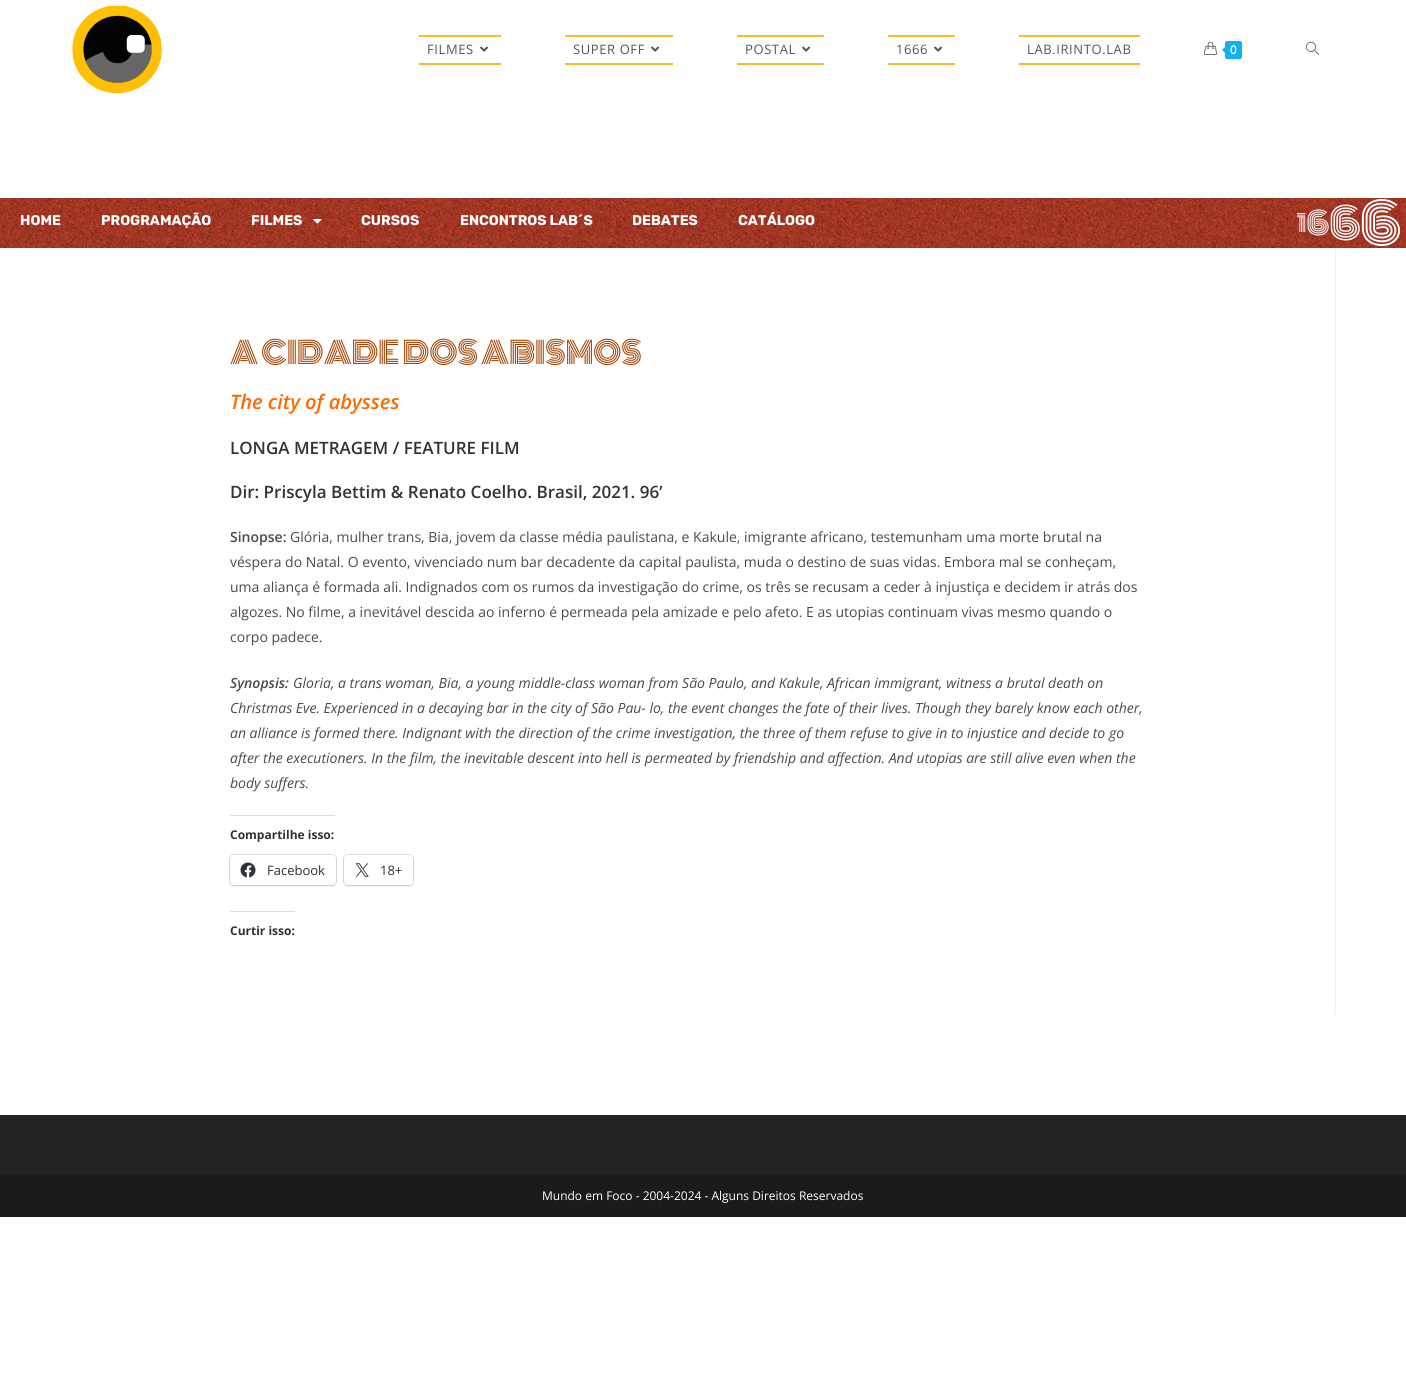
#include <cairo.h>
#include <math.h>
#include <stddef.h>


static void set_color(cairo_t *cr, unsigned color) {
    cairo_set_source_rgb(cr, (color >> 16) / 255.0, (color >> 8 & 255) / 255.0, (color & 255) / 255.0);
}

static void draw_text(cairo_t *cr, double x, double y, const char *s, const char *family, double size, int italic, int bold, unsigned color) {
    cairo_select_font_face(cr, family, italic ? CAIRO_FONT_SLANT_ITALIC : CAIRO_FONT_SLANT_NORMAL,
        bold ? CAIRO_FONT_WEIGHT_BOLD : CAIRO_FONT_WEIGHT_NORMAL);
    cairo_set_font_size(cr, size);
    set_color(cr, color);
    cairo_move_to(cr, x, y);
    cairo_show_text(cr, s);
}

static void draw_spaced(cairo_t *cr, double x, double y, const char *s, double letter, double word) {
    cairo_move_to(cr, x, y);
    while (*s) {
        char ch[5] = {0};
        int n = 0;
        do ch[n++] = *s++; while ((*s & 0xC0) == 0x80);
        cairo_show_text(cr, ch);
        cairo_rel_move_to(cr, letter + word * (*ch == ' '), 0);
    }
}

static void fill_rect(cairo_t *cr, double x, double y, double w, double h, unsigned color) {
    set_color(cr, color);
    cairo_rectangle(cr, x, y, w, h);
    cairo_fill(cr);
}

static void rounded_rect(cairo_t *cr, double x, double y, double w, double h, double r) {
    cairo_new_sub_path(cr);
    cairo_arc(cr, x + w - r, y + h - r, r, 0, M_PI / 2);
    cairo_arc(cr, x + r, y + h - r, r, M_PI / 2, M_PI);
    cairo_arc(cr, x + r, y + r, r, M_PI, 1.5 * M_PI);
    cairo_arc(cr, x + w - r, y + r, r, 1.5 * M_PI, 2 * M_PI);
    cairo_close_path(cr);
}

static void draw_shadow(cairo_t *cr, double x, double y, double w, double h, double r, double blur, double alpha) {
    cairo_push_group_with_content(cr, CAIRO_CONTENT_ALPHA);
    cairo_set_operator(cr, CAIRO_OPERATOR_SOURCE);
    for (int i = 15; i >= -15 && fmin(w, h) + blur * i / 3 > 0; i -= 2) {
        double e = blur * i / 6;
        cairo_set_source_rgba(cr, 0, 0, 0, alpha * erfc((i - 1) / 8.5) / 2);
        rounded_rect(cr, x - e, y - e, w + 2 * e, h + 2 * e, fmax(0, fmin(r + e + blur * .6, fmin(w, h) / 2 + e)));
        cairo_fill(cr);
    }
    cairo_pattern_t *soft = cairo_pop_group(cr);
    cairo_mask(cr, soft);
    cairo_pattern_destroy(soft);
}

static void draw_image(cairo_t *cr, const char *path, double x, double y, double w, double h) {
    cairo_surface_t *image = cairo_image_surface_create_from_png(path);
    cairo_save(cr);
    cairo_set_source_surface(cr, image, x, y);
    cairo_rectangle(cr, x, y, w, h);
    cairo_fill(cr);
    cairo_restore(cr);
    cairo_surface_destroy(image);
}

int main(void) {
    cairo_surface_t *surface = cairo_image_surface_create(CAIRO_FORMAT_RGB24, 1406, 1397);
    cairo_t *cr = cairo_create(surface);
    cairo_font_options_t *options = cairo_font_options_create();
    cairo_font_options_set_hint_metrics(options, CAIRO_HINT_METRICS_OFF);
    cairo_font_options_set_hint_style(options, CAIRO_HINT_STYLE_NONE);
    cairo_set_font_options(cr, options);
    cairo_set_miter_limit(cr, 4);
    set_color(cr, 0xFFFFFF);
    cairo_paint(cr);
    draw_image(cr, "assets/img1.png", 72, 5, 90, 89);
    fill_rect(cr, 419, 35, 82, 2, 0xFEB82E);
    cairo_select_font_face(cr, "Open Sans", CAIRO_FONT_SLANT_NORMAL, CAIRO_FONT_WEIGHT_NORMAL);
    cairo_set_font_size(cr, 13);
    set_color(cr, 0x555555);
    draw_spaced(cr, 427, 54, "FILMES", 0.6, 0);
    draw_image(cr, "assets/img2.png", 480, 46, 9, 6);
    fill_rect(cr, 419, 63, 82, 2, 0xFEB82E);
    fill_rect(cr, 565, 35, 108, 2, 0xFEB82E);
    set_color(cr, 0x555555);
    draw_spaced(cr, 573, 54, "SUPER OFF", 0.6, 0);
    draw_image(cr, "assets/img2.png", 651, 46, 9, 6);
    fill_rect(cr, 565, 63, 108, 2, 0xFEB82E);
    fill_rect(cr, 737, 35, 87, 2, 0xFEB82E);
    set_color(cr, 0x555555);
    draw_spaced(cr, 745, 54, "POSTAL", 0.6, 0);
    draw_image(cr, "assets/img2.png", 802, 46, 9, 6);
    fill_rect(cr, 737, 63, 87, 2, 0xFEB82E);
    fill_rect(cr, 888, 35, 67, 2, 0xFEB82E);
    set_color(cr, 0x555555);
    draw_spaced(cr, 896, 54, "1666", 0.6, 0);
    draw_image(cr, "assets/img2.png", 934, 46, 9, 6);
    fill_rect(cr, 888, 63, 67, 2, 0xFEB82E);
    fill_rect(cr, 1019, 35, 121, 2, 0xFEB82E);
    set_color(cr, 0x555555);
    draw_spaced(cr, 1027, 54, "LAB.IRINTO.LAB", 0.6, 0);
    fill_rect(cr, 1019, 63, 121, 2, 0xFEB82E);
    draw_image(cr, "assets/img3.png", 1204, 41, 13, 14);
    set_color(cr, 0x13AFF0);
    rounded_rect(cr, 1225, 41, 17, 18, 2);
    cairo_fill(cr);
    cairo_new_path(cr);
    cairo_move_to(cr, 1227, 45);
    cairo_line_to(cr, 1227, 55);
    cairo_line_to(cr, 1222, 50);
    cairo_close_path(cr);
    cairo_fill(cr);
    draw_text(cr, 1230, 54, "0", "Open Sans SemiBold", 12, 0, 0, 0xFFFFFF);
    draw_image(cr, "assets/img4.png", 1306, 41, 13, 14);
    fill_rect(cr, 1335, 248, 1, 767, 0xF1F1F1);
    draw_image(cr, "assets/img5.png", 0, 198, 1406, 50);
    draw_text(cr, 20, 225, "HOME", "Rubik", 14, 0, 1, 0xFFFFFF);
    draw_text(cr, 101, 225, "PROGRAMAÇÃO", "Rubik", 14, 0, 1, 0xFFFFFF);
    draw_text(cr, 251, 225, "FILMES", "Rubik", 14, 0, 1, 0xFFFFFF);
    draw_image(cr, "assets/img6.png", 313, 219, 9, 5);
    draw_text(cr, 361, 225, "CURSOS", "Rubik", 14, 0, 1, 0xFFFFFF);
    draw_text(cr, 460, 225, "ENCONTROS LAB´S", "Rubik", 14, 0, 1, 0xFFFFFF);
    draw_text(cr, 632, 225, "DEBATES", "Rubik", 14, 0, 1, 0xFFFFFF);
    draw_text(cr, 738, 225, "CATÁLOGO", "Rubik", 14, 0, 1, 0xFFFFFF);
    draw_image(cr, "assets/img7.png", 1297, 199, 103, 47);
    draw_text(cr, 230, 364, "A CIDADE DOS ABISMOS", "Monoton", 30, 0, 0, 0xA34200);
    draw_text(cr, 230, 409, "The city of abysses", "Open Sans SemiBold", 20, 1, 0, 0xFF6900);
    draw_text(cr, 230, 454, "LONGA METRAGEM / FEATURE FILM", "Open Sans SemiBold", 17, 0, 0, 0x333333);
    draw_text(cr, 230, 498, "Dir: Priscyla Bettim & Renato Coelho. Brasil, 2021. 96’", "Open Sans SemiBold", 17, 0, 0, 0x333333);
    draw_text(cr, 230, 542, "Sinopse:", "Open Sans SemiBold", 14, 0, 0, 0x4A4A4A);
    draw_text(cr, 290, 542, "Glória, mulher trans, Bia, jovem da classe média paulistana, e Kakule, imigrante africano, testemunham uma morte brutal na", "Open Sans", 14, 0, 0, 0x4A4A4A);
    draw_text(cr, 230, 567, "véspera do Natal. O evento, vivenciado num bar decadente da capital paulista, muda o destino de suas vidas. Embora mal se conheçam,", "Open Sans", 14, 0, 0, 0x4A4A4A);
    draw_text(cr, 230, 592, "uma aliança é formada ali. Indignados com os rumos da investigação do crime, os três se recusam a ceder à injustiça e decidem ir atrás dos", "Open Sans", 14, 0, 0, 0x4A4A4A);
    draw_text(cr, 230, 617, "algozes. No filme, a inevitável descida ao inferno é permeada pela amizade e pelo afeto. E as utopias continuam vivas mesmo quando o", "Open Sans", 14, 0, 0, 0x4A4A4A);
    draw_text(cr, 230, 642, "corpo padece.", "Open Sans", 14, 0, 0, 0x4A4A4A);
    draw_text(cr, 230, 688, "Synopsis:", "Open Sans SemiBold", 14, 1, 0, 0x4A4A4A);
    draw_text(cr, 293, 688, "Gloria, a trans woman, Bia, a young middle-class woman from São Paulo, and Kakule, African immigrant, witness a brutal death on", "Open Sans", 14, 1, 0, 0x4A4A4A);
    draw_text(cr, 230, 713, "Christmas Eve. Experienced in a decaying bar in the city of São Pau- lo, the event changes the fate of their lives. Though they barely know each other,", "Open Sans", 14, 1, 0, 0x4A4A4A);
    draw_text(cr, 230, 738, "an alliance is formed there. Indignant with the direction of the crime investigation, the three of them refuse to give in to injustice and decide to go", "Open Sans", 14, 1, 0, 0x4A4A4A);
    draw_text(cr, 230, 763, "after the executioners. In the film, the inevitable descent into hell is permeated by friendship and affection. And utopias are still alive even when the", "Open Sans", 14, 1, 0, 0x4A4A4A);
    draw_text(cr, 230, 788, "body suffers.", "Open Sans", 14, 1, 0, 0x4A4A4A);
    fill_rect(cr, 230, 815, 105, 1, 0xDCDCDE);
    draw_text(cr, 230, 839, "Compartilhe isso:", "Open Sans", 12, 0, 1, 0x333333);
    rounded_rect(cr, 229.5, 854.5, 107, 31, 4.5);
    set_color(cr, 0xE0E0E0);
    cairo_set_line_width(cr, 1);
    cairo_stroke(cr);
    set_color(cr, 0x000000);
    draw_shadow(cr, 230, 856, 106, 30, 4, 1, 0.12);
    set_color(cr, 0xFFFFFF);
    rounded_rect(cr, 230, 855, 106, 30, 4);
    cairo_fill(cr);
    draw_image(cr, "assets/img8.png", 240, 862, 16, 16);
    draw_text(cr, 267, 875, "Facebook", "Open Sans", 13, 0, 0, 0x2C3338);
    rounded_rect(cr, 343.5, 854.5, 70, 31, 4.5);
    set_color(cr, 0xE0E0E0);
    cairo_stroke(cr);
    set_color(cr, 0x000000);
    draw_shadow(cr, 344, 856, 69, 30, 4, 1, 0.12);
    set_color(cr, 0xFFFFFF);
    rounded_rect(cr, 344, 855, 69, 30, 4);
    cairo_fill(cr);
    draw_image(cr, "assets/img9.png", 355, 863, 14, 14);
    draw_text(cr, 380, 875, "18+", "Open Sans", 13, 0, 0, 0x2C3338);
    fill_rect(cr, 230, 911, 65, 1, 0xDCDCDE);
    draw_text(cr, 230, 935, "Curtir isso:", "Open Sans", 12, 0, 1, 0x333333);
    fill_rect(cr, 0, 1115, 1406, 60, 0x222222);
    fill_rect(cr, 0, 1175, 1406, 42, 0x1B1B1B);
    draw_text(cr, 542, 1200, "Mundo em Foco - 2004-2024 - Alguns Direitos Reservados", "Open Sans", 12, 0, 0, 0xFFFFFF);
    cairo_surface_write_to_png(surface, "output.png");
    cairo_font_options_destroy(options);
    cairo_destroy(cr);
    cairo_surface_destroy(surface);
    return 0;
}
